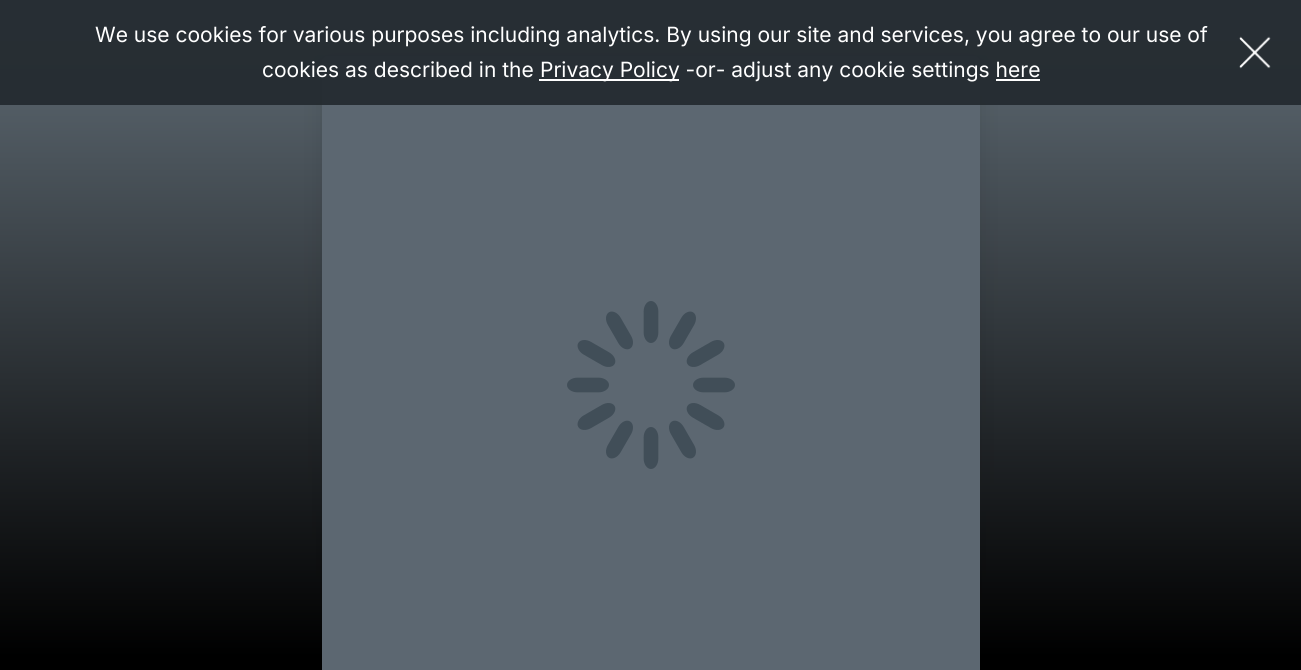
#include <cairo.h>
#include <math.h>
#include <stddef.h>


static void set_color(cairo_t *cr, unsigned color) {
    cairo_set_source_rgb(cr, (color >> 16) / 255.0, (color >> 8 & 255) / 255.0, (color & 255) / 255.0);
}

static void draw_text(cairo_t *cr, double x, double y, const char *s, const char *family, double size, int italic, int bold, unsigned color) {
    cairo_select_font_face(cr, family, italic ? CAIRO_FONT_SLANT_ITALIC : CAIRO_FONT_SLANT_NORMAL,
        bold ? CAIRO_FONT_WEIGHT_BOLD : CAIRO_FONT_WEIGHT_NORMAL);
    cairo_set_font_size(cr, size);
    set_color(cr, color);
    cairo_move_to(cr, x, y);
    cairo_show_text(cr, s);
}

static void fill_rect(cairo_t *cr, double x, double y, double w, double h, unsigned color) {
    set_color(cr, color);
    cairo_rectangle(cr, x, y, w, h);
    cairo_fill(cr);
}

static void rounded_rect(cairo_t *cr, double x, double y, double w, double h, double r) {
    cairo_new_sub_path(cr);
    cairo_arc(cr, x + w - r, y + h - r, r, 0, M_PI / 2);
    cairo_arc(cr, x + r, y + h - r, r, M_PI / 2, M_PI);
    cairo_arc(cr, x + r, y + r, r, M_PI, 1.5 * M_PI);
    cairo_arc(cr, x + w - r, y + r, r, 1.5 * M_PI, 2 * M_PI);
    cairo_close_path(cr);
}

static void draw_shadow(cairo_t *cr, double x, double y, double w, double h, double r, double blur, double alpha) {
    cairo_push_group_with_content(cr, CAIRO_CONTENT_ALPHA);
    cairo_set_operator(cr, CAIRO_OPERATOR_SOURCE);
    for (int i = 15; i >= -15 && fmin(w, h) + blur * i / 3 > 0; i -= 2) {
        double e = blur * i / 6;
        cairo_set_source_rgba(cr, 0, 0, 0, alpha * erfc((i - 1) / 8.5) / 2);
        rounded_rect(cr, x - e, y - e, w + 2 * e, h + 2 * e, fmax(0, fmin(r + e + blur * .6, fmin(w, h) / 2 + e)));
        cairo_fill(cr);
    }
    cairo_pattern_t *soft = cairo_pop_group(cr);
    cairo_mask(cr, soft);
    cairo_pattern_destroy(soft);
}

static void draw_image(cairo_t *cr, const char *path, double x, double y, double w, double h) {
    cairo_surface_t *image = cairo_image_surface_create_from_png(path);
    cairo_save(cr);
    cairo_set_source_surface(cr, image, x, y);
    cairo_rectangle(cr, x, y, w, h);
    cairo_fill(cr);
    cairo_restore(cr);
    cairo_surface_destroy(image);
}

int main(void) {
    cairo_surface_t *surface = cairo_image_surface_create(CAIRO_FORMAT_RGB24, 1301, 670);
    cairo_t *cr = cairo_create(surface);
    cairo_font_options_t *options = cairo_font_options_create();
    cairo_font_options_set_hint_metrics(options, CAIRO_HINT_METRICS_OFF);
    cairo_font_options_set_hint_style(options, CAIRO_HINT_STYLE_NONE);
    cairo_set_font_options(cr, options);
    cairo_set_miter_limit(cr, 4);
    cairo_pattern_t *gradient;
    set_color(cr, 0xFFFFFF);
    cairo_paint(cr);
    gradient = cairo_pattern_create_linear(651, 0, 651, 670);
    cairo_pattern_add_color_stop_rgba(gradient, 0, 0.365, 0.408, 0.439, 1);
    cairo_pattern_add_color_stop_rgba(gradient, 0.15, 0.325, 0.365, 0.396, 1);
    cairo_pattern_add_color_stop_rgba(gradient, 0.98, 0, 0, 0, 1);
    cairo_set_source(cr, gradient);
    cairo_pattern_destroy(gradient);
    cairo_rectangle(cr, 0, 0, 1301, 670);
    cairo_fill(cr);
    set_color(cr, 0x000000);
    draw_shadow(cr, 322, 67, 658, 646, 7, 12, 0.1);
    set_color(cr, 0x5C6771);
    rounded_rect(cr, 322, 56, 658, 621, 7);
    cairo_fill(cr);
    draw_image(cr, "assets/img1.png", 567, 301, 168, 168);
    cairo_set_source_rgba(cr, 0.133, 0.157, 0.18, 0.9);
    cairo_rectangle(cr, 0, 0, 1301, 105);
    cairo_fill(cr);
    draw_text(cr, 95, 42, "We use cookies for various purposes including analytics. By using our site and services, you agree to our use of", "Inter", 21, 0, 0, 0xFFFFFF);
    draw_text(cr, 262, 77, "cookies as described in the", "Inter", 21, 0, 0, 0xFFFFFF);
    fill_rect(cr, 539, 79, 140, 2, 0xFFFFFF);
    draw_text(cr, 540, 77, "Privacy Policy -or- adjust any cookie settings here", "Inter", 21, 0, 0, 0xFFFFFF);
    fill_rect(cr, 996, 79, 44, 2, 0xFFFFFF);
    draw_image(cr, "assets/img2.png", 1239, 36, 32, 33);
    cairo_surface_write_to_png(surface, "output.png");
    cairo_font_options_destroy(options);
    cairo_destroy(cr);
    cairo_surface_destroy(surface);
    return 0;
}
